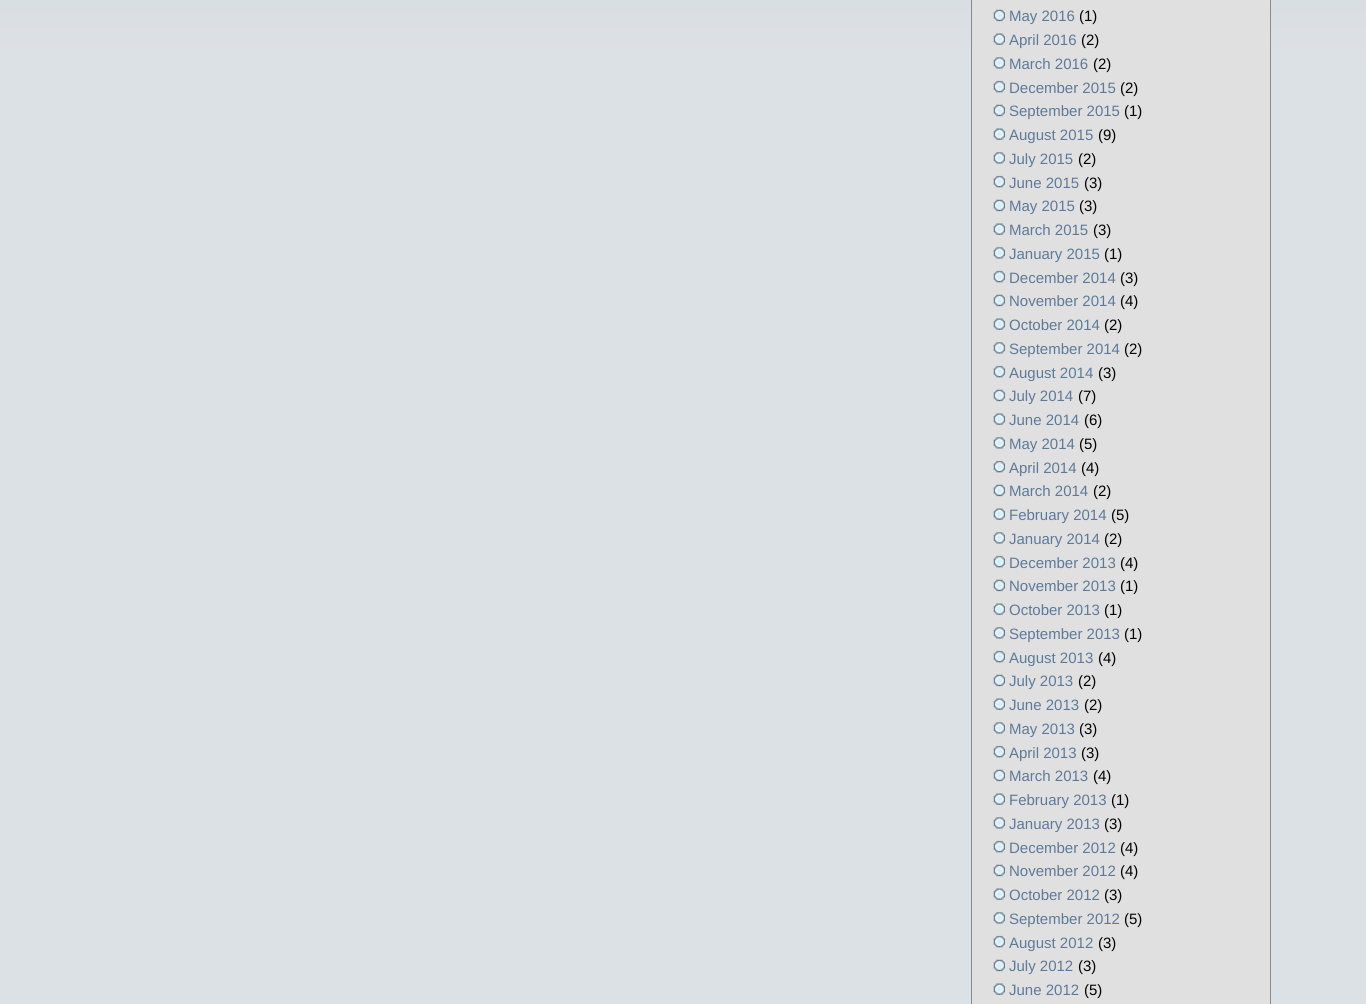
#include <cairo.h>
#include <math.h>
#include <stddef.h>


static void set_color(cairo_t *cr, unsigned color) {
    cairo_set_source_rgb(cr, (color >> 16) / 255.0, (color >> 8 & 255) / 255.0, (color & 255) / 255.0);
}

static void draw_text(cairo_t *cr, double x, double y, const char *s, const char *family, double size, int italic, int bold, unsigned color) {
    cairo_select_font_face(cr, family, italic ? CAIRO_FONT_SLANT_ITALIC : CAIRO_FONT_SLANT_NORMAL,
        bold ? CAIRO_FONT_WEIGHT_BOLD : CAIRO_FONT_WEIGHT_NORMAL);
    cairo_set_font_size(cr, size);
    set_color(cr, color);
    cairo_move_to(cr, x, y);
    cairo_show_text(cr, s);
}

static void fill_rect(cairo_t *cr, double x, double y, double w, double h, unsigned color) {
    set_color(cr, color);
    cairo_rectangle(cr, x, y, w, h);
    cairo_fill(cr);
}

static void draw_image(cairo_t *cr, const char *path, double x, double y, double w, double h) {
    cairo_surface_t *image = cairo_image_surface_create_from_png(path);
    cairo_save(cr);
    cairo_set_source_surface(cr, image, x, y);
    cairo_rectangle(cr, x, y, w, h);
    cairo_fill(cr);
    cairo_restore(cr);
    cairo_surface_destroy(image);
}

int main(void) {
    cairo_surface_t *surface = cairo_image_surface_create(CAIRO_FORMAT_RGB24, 1366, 1004);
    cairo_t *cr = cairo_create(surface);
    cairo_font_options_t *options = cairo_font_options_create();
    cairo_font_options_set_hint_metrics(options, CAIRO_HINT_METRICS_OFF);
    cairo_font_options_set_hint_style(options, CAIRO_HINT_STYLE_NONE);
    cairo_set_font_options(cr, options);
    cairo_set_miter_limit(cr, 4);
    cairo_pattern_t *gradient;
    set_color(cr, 0xFFFFFF);
    cairo_paint(cr);
    gradient = cairo_pattern_create_linear(683, -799, 683, 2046);
    cairo_pattern_add_color_stop_rgba(gradient, 0, 0.667, 0.69, 0.71, 1);
    cairo_pattern_add_color_stop_rgba(gradient, 0.3, 0.863, 0.882, 0.902, 1);
    cairo_pattern_add_color_stop_rgba(gradient, 1, 0.863, 0.882, 0.902, 1);
    cairo_set_source(cr, gradient);
    cairo_pattern_destroy(gradient);
    cairo_rectangle(cr, 0, 0, 1366, 1004);
    cairo_fill(cr);
    fill_rect(cr, 973, 0, 297, 1004, 0xE0E0E0);
    fill_rect(cr, 1270, 0, 1, 1004, 0x8A8C8D);
    fill_rect(cr, 971, 0, 1, 1004, 0x8A8C8D);
    draw_image(cr, "assets/img1.png", 993, 9, 12, 13);
    draw_text(cr, 1009, 21, "May 2016", "Liberation Sans", 15, 0, 0, 0x5C7A99);
    draw_text(cr, 1079, 21, "(1)", "Liberation Sans", 15, 0, 0, 0x000000);
    draw_image(cr, "assets/img2.png", 993, 33, 12, 12);
    draw_text(cr, 1009, 45, "April 2016", "Liberation Sans", 15, 0, 0, 0x5C7A99);
    draw_text(cr, 1081, 45, "(2)", "Liberation Sans", 15, 0, 0, 0x000000);
    draw_image(cr, "assets/img3.png", 993, 57, 12, 12);
    draw_text(cr, 1009, 69, "March 2016", "Liberation Sans", 15, 0, 0, 0x5C7A99);
    draw_text(cr, 1093, 69, "(2)", "Liberation Sans", 15, 0, 0, 0x000000);
    draw_image(cr, "assets/img4.png", 993, 80, 12, 13);
    draw_text(cr, 1009, 93, "December 2015", "Liberation Sans", 15, 0, 0, 0x5C7A99);
    draw_text(cr, 1120, 93, "(2)", "Liberation Sans", 15, 0, 0, 0x000000);
    draw_image(cr, "assets/img1.png", 993, 104, 12, 13);
    draw_text(cr, 1009, 116, "September 2015", "Liberation Sans", 15, 0, 0, 0x5C7A99);
    draw_text(cr, 1124, 116, "(1)", "Liberation Sans", 15, 0, 0, 0x000000);
    draw_image(cr, "assets/img2.png", 993, 128, 12, 12);
    draw_text(cr, 1009, 140, "August 2015", "Liberation Sans", 15, 0, 0, 0x5C7A99);
    draw_text(cr, 1098, 140, "(9)", "Liberation Sans", 15, 0, 0, 0x000000);
    draw_image(cr, "assets/img3.png", 993, 152, 12, 12);
    draw_text(cr, 1009, 164, "July 2015", "Liberation Sans", 15, 0, 0, 0x5C7A99);
    draw_text(cr, 1078, 164, "(2)", "Liberation Sans", 15, 0, 0, 0x000000);
    draw_image(cr, "assets/img4.png", 993, 175, 12, 13);
    draw_text(cr, 1009, 188, "June 2015", "Liberation Sans", 15, 0, 0, 0x5C7A99);
    draw_text(cr, 1084, 188, "(3)", "Liberation Sans", 15, 0, 0, 0x000000);
    draw_image(cr, "assets/img1.png", 993, 199, 12, 13);
    draw_text(cr, 1009, 211, "May 2015", "Liberation Sans", 15, 0, 0, 0x5C7A99);
    draw_text(cr, 1079, 211, "(3)", "Liberation Sans", 15, 0, 0, 0x000000);
    draw_image(cr, "assets/img2.png", 993, 223, 12, 12);
    draw_text(cr, 1009, 235, "March 2015", "Liberation Sans", 15, 0, 0, 0x5C7A99);
    draw_text(cr, 1093, 235, "(3)", "Liberation Sans", 15, 0, 0, 0x000000);
    draw_image(cr, "assets/img3.png", 993, 247, 12, 12);
    draw_text(cr, 1009, 259, "January 2015", "Liberation Sans", 15, 0, 0, 0x5C7A99);
    draw_text(cr, 1104, 259, "(1)", "Liberation Sans", 15, 0, 0, 0x000000);
    draw_image(cr, "assets/img4.png", 993, 270, 12, 13);
    draw_text(cr, 1009, 283, "December 2014", "Liberation Sans", 15, 0, 0, 0x5C7A99);
    draw_text(cr, 1120, 283, "(3)", "Liberation Sans", 15, 0, 0, 0x000000);
    draw_image(cr, "assets/img1.png", 993, 294, 12, 13);
    draw_text(cr, 1009, 306, "November 2014", "Liberation Sans", 15, 0, 0, 0x5C7A99);
    draw_text(cr, 1120, 306, "(4)", "Liberation Sans", 15, 0, 0, 0x000000);
    draw_image(cr, "assets/img2.png", 993, 318, 12, 12);
    draw_text(cr, 1009, 330, "October 2014", "Liberation Sans", 15, 0, 0, 0x5C7A99);
    draw_text(cr, 1104, 330, "(2)", "Liberation Sans", 15, 0, 0, 0x000000);
    draw_image(cr, "assets/img3.png", 993, 342, 12, 12);
    draw_text(cr, 1009, 354, "September 2014", "Liberation Sans", 15, 0, 0, 0x5C7A99);
    draw_text(cr, 1124, 354, "(2)", "Liberation Sans", 15, 0, 0, 0x000000);
    draw_image(cr, "assets/img4.png", 993, 365, 12, 13);
    draw_text(cr, 1009, 378, "August 2014", "Liberation Sans", 15, 0, 0, 0x5C7A99);
    draw_text(cr, 1098, 378, "(3)", "Liberation Sans", 15, 0, 0, 0x000000);
    draw_image(cr, "assets/img1.png", 993, 389, 12, 13);
    draw_text(cr, 1009, 401, "July 2014", "Liberation Sans", 15, 0, 0, 0x5C7A99);
    draw_text(cr, 1078, 401, "(7)", "Liberation Sans", 15, 0, 0, 0x000000);
    draw_image(cr, "assets/img2.png", 993, 413, 12, 12);
    draw_text(cr, 1009, 425, "June 2014", "Liberation Sans", 15, 0, 0, 0x5C7A99);
    draw_text(cr, 1084, 425, "(6)", "Liberation Sans", 15, 0, 0, 0x000000);
    draw_image(cr, "assets/img3.png", 993, 437, 12, 12);
    draw_text(cr, 1009, 449, "May 2014", "Liberation Sans", 15, 0, 0, 0x5C7A99);
    draw_text(cr, 1079, 449, "(5)", "Liberation Sans", 15, 0, 0, 0x000000);
    draw_image(cr, "assets/img4.png", 993, 460, 12, 13);
    draw_text(cr, 1009, 473, "April 2014", "Liberation Sans", 15, 0, 0, 0x5C7A99);
    draw_text(cr, 1081, 473, "(4)", "Liberation Sans", 15, 0, 0, 0x000000);
    draw_image(cr, "assets/img1.png", 993, 484, 12, 13);
    draw_text(cr, 1009, 496, "March 2014", "Liberation Sans", 15, 0, 0, 0x5C7A99);
    draw_text(cr, 1093, 496, "(2)", "Liberation Sans", 15, 0, 0, 0x000000);
    draw_image(cr, "assets/img2.png", 993, 508, 12, 12);
    draw_text(cr, 1009, 520, "February 2014", "Liberation Sans", 15, 0, 0, 0x5C7A99);
    draw_text(cr, 1111, 520, "(5)", "Liberation Sans", 15, 0, 0, 0x000000);
    draw_image(cr, "assets/img3.png", 993, 532, 12, 12);
    draw_text(cr, 1009, 544, "January 2014", "Liberation Sans", 15, 0, 0, 0x5C7A99);
    draw_text(cr, 1104, 544, "(2)", "Liberation Sans", 15, 0, 0, 0x000000);
    draw_image(cr, "assets/img4.png", 993, 555, 12, 13);
    draw_text(cr, 1009, 568, "December 2013", "Liberation Sans", 15, 0, 0, 0x5C7A99);
    draw_text(cr, 1120, 568, "(4)", "Liberation Sans", 15, 0, 0, 0x000000);
    draw_image(cr, "assets/img1.png", 993, 579, 12, 13);
    draw_text(cr, 1009, 591, "November 2013", "Liberation Sans", 15, 0, 0, 0x5C7A99);
    draw_text(cr, 1120, 591, "(1)", "Liberation Sans", 15, 0, 0, 0x000000);
    draw_image(cr, "assets/img2.png", 993, 603, 12, 12);
    draw_text(cr, 1009, 615, "October 2013", "Liberation Sans", 15, 0, 0, 0x5C7A99);
    draw_text(cr, 1104, 615, "(1)", "Liberation Sans", 15, 0, 0, 0x000000);
    draw_image(cr, "assets/img3.png", 993, 627, 12, 12);
    draw_text(cr, 1009, 639, "September 2013", "Liberation Sans", 15, 0, 0, 0x5C7A99);
    draw_text(cr, 1124, 639, "(1)", "Liberation Sans", 15, 0, 0, 0x000000);
    draw_image(cr, "assets/img4.png", 993, 650, 12, 13);
    draw_text(cr, 1009, 663, "August 2013", "Liberation Sans", 15, 0, 0, 0x5C7A99);
    draw_text(cr, 1098, 663, "(4)", "Liberation Sans", 15, 0, 0, 0x000000);
    draw_image(cr, "assets/img1.png", 993, 674, 12, 13);
    draw_text(cr, 1009, 686, "July 2013", "Liberation Sans", 15, 0, 0, 0x5C7A99);
    draw_text(cr, 1078, 686, "(2)", "Liberation Sans", 15, 0, 0, 0x000000);
    draw_image(cr, "assets/img2.png", 993, 698, 12, 12);
    draw_text(cr, 1009, 710, "June 2013", "Liberation Sans", 15, 0, 0, 0x5C7A99);
    draw_text(cr, 1084, 710, "(2)", "Liberation Sans", 15, 0, 0, 0x000000);
    draw_image(cr, "assets/img3.png", 993, 722, 12, 12);
    draw_text(cr, 1009, 734, "May 2013", "Liberation Sans", 15, 0, 0, 0x5C7A99);
    draw_text(cr, 1079, 734, "(3)", "Liberation Sans", 15, 0, 0, 0x000000);
    draw_image(cr, "assets/img4.png", 993, 745, 12, 13);
    draw_text(cr, 1009, 758, "April 2013", "Liberation Sans", 15, 0, 0, 0x5C7A99);
    draw_text(cr, 1081, 758, "(3)", "Liberation Sans", 15, 0, 0, 0x000000);
    draw_image(cr, "assets/img5.png", 993, 769, 12, 13);
    draw_text(cr, 1009, 781, "March 2013", "Liberation Sans", 15, 0, 0, 0x5C7A99);
    draw_text(cr, 1093, 781, "(4)", "Liberation Sans", 15, 0, 0, 0x000000);
    draw_image(cr, "assets/img2.png", 993, 793, 12, 12);
    draw_text(cr, 1009, 805, "February 2013", "Liberation Sans", 15, 0, 0, 0x5C7A99);
    draw_text(cr, 1111, 805, "(1)", "Liberation Sans", 15, 0, 0, 0x000000);
    draw_image(cr, "assets/img3.png", 993, 817, 12, 12);
    draw_text(cr, 1009, 829, "January 2013", "Liberation Sans", 15, 0, 0, 0x5C7A99);
    draw_text(cr, 1104, 829, "(3)", "Liberation Sans", 15, 0, 0, 0x000000);
    draw_image(cr, "assets/img4.png", 993, 840, 12, 13);
    draw_text(cr, 1009, 853, "December 2012", "Liberation Sans", 15, 0, 0, 0x5C7A99);
    draw_text(cr, 1120, 853, "(4)", "Liberation Sans", 15, 0, 0, 0x000000);
    draw_image(cr, "assets/img1.png", 993, 864, 12, 13);
    draw_text(cr, 1009, 876, "November 2012", "Liberation Sans", 15, 0, 0, 0x5C7A99);
    draw_text(cr, 1120, 876, "(4)", "Liberation Sans", 15, 0, 0, 0x000000);
    draw_image(cr, "assets/img2.png", 993, 888, 12, 12);
    draw_text(cr, 1009, 900, "October 2012", "Liberation Sans", 15, 0, 0, 0x5C7A99);
    draw_text(cr, 1104, 900, "(3)", "Liberation Sans", 15, 0, 0, 0x000000);
    draw_image(cr, "assets/img3.png", 993, 912, 12, 12);
    draw_text(cr, 1009, 924, "September 2012", "Liberation Sans", 15, 0, 0, 0x5C7A99);
    draw_text(cr, 1124, 924, "(5)", "Liberation Sans", 15, 0, 0, 0x000000);
    draw_image(cr, "assets/img4.png", 993, 935, 12, 13);
    draw_text(cr, 1009, 948, "August 2012", "Liberation Sans", 15, 0, 0, 0x5C7A99);
    draw_text(cr, 1098, 948, "(3)", "Liberation Sans", 15, 0, 0, 0x000000);
    draw_image(cr, "assets/img1.png", 993, 959, 12, 13);
    draw_text(cr, 1009, 971, "July 2012", "Liberation Sans", 15, 0, 0, 0x5C7A99);
    draw_text(cr, 1078, 971, "(3)", "Liberation Sans", 15, 0, 0, 0x000000);
    draw_image(cr, "assets/img2.png", 993, 983, 12, 12);
    draw_text(cr, 1009, 995, "June 2012", "Liberation Sans", 15, 0, 0, 0x5C7A99);
    draw_text(cr, 1084, 995, "(5)", "Liberation Sans", 15, 0, 0, 0x000000);
    cairo_surface_write_to_png(surface, "output.png");
    cairo_font_options_destroy(options);
    cairo_destroy(cr);
    cairo_surface_destroy(surface);
    return 0;
}
